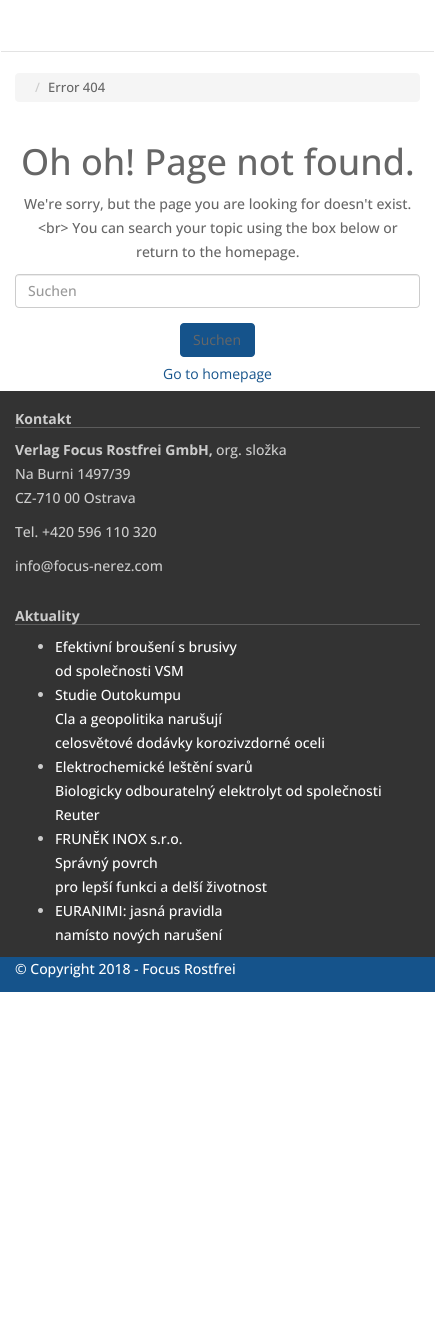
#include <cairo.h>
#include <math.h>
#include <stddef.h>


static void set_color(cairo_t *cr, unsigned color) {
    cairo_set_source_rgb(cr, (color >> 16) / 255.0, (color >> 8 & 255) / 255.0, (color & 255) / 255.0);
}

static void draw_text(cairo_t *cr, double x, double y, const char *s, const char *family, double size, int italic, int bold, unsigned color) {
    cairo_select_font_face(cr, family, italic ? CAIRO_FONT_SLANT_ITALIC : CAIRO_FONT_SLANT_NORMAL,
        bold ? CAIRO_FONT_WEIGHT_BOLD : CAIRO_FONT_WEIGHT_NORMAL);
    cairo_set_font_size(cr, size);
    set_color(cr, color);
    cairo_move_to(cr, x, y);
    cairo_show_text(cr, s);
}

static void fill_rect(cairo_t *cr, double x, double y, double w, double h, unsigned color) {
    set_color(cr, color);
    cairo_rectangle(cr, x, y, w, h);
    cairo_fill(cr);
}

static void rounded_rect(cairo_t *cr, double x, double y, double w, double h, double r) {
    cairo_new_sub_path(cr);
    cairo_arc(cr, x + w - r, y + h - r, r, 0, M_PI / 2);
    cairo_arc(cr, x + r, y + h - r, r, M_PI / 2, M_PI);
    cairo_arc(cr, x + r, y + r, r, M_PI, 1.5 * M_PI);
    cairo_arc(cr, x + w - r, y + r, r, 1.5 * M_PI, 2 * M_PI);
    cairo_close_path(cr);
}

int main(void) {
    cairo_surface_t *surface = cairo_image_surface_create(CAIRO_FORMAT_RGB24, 435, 1320);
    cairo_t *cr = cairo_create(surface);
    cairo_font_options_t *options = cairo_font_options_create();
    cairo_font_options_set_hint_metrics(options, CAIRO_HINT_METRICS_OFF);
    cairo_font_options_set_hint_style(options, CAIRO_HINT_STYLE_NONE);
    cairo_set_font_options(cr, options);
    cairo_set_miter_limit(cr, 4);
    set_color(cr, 0xFFFFFF);
    cairo_paint(cr);
    fill_rect(cr, 1, 51, 433, 1, 0xE3E3E3);
    set_color(cr, 0xF5F5F5);
    rounded_rect(cr, 15, 73, 405, 29, 4);
    cairo_fill(cr);
    draw_text(cr, 35, 92, "/", "Open Sans Medium", 13, 0, 0, 0xCCCCCC);
    draw_text(cr, 48, 92, "Error 404", "Open Sans Medium", 13, 0, 0, 0x666666);
    draw_text(cr, 21, 175, "Oh oh! Page not found.", "Open Sans Medium", 36, 0, 0, 0x666666);
    draw_text(cr, 24, 209, "We're sorry, but the page you are looking for doesn't exist.", "Open Sans Medium", 14, 0, 0, 0x666666);
    draw_text(cr, 38, 233, "<br> You can search your topic using the box below or", "Open Sans Medium", 14, 0, 0, 0x666666);
    draw_text(cr, 136, 257, "return to the homepage.", "Open Sans Medium", 14, 0, 0, 0x666666);
    set_color(cr, 0xECECEC);
    cairo_new_path(cr);
    cairo_move_to(cr, 19, 276);
    cairo_line_to(cr, 416, 276);
    cairo_curve_to(cr, 418, 276, 419, 277, 419, 279);
    cairo_curve_to(cr, 419, 277, 418, 275, 416, 275);
    cairo_line_to(cr, 19, 275);
    cairo_curve_to(cr, 17, 275, 16, 277, 16, 279);
    cairo_curve_to(cr, 16, 277, 17, 276, 19, 276);
    cairo_close_path(cr);
    cairo_fill(cr);
    rounded_rect(cr, 15.5, 274.5, 404, 33, 3.5);
    set_color(cr, 0xCCCCCC);
    cairo_set_line_width(cr, 1);
    cairo_stroke(cr);
    draw_text(cr, 28, 296, "Suchen", "Open Sans Medium", 14, 0, 0, 0x999999);
    set_color(cr, 0x15538B);
    rounded_rect(cr, 180, 323, 75, 34, 4);
    cairo_fill(cr);
    draw_text(cr, 193, 345, "Suchen", "Open Sans", 14, 0, 0, 0x666666);
    draw_text(cr, 163, 379, "Go to homepage", "Open Sans", 14, 0, 0, 0x15538B);
    fill_rect(cr, 0, 391, 435, 566, 0x333333);
    fill_rect(cr, 15, 427, 405, 1, 0x5C5C5C);
    draw_text(cr, 15, 424, "Kontakt", "Open Sans", 14, 0, 1, 0xCCCCCC);
    draw_text(cr, 15, 455, "Verlag Focus Rostfrei GmbH,", "Open Sans", 14, 0, 1, 0xCCCCCC);
    draw_text(cr, 216, 455, "org. složka", "Open Sans Medium", 14, 0, 0, 0xCCCCCC);
    draw_text(cr, 15, 479, "Na Burni 1497/39", "Open Sans Medium", 14, 0, 0, 0xCCCCCC);
    draw_text(cr, 15, 503, "CZ-710 00 Ostrava", "Open Sans Medium", 14, 0, 0, 0xCCCCCC);
    draw_text(cr, 15, 537, "Tel. +420 596 110 320", "Open Sans Medium", 14, 0, 0, 0xCCCCCC);
    draw_text(cr, 15, 571, "info@focus-nerez.com", "Open Sans Medium", 14, 0, 0, 0xCCCCCC);
    fill_rect(cr, 15, 624, 405, 1, 0x5C5C5C);
    draw_text(cr, 15, 621, "Aktuality", "Open Sans", 14, 0, 1, 0xCCCCCC);
    cairo_new_path(cr);
    cairo_arc(cr, 40.5, 646.5, 2.5, 0, 2 * M_PI);
    cairo_fill(cr);
    draw_text(cr, 55, 652, "Efektivní broušení s brusivy", "Open Sans Medium", 14, 0, 0, 0xFFFFFF);
    draw_text(cr, 55, 676, "od společnosti VSM", "Open Sans Medium", 14, 0, 0, 0xFFFFFF);
    set_color(cr, 0xCCCCCC);
    cairo_new_path(cr);
    cairo_arc(cr, 40.5, 694.5, 2.5, 0, 2 * M_PI);
    cairo_fill(cr);
    draw_text(cr, 55, 700, "Studie Outokumpu", "Open Sans Medium", 14, 0, 0, 0xFFFFFF);
    draw_text(cr, 55, 724, "Cla a geopolitika narušují", "Open Sans Medium", 14, 0, 0, 0xFFFFFF);
    draw_text(cr, 55, 748, "celosvětové dodávky korozivzdorné oceli", "Open Sans Medium", 14, 0, 0, 0xFFFFFF);
    set_color(cr, 0xCCCCCC);
    cairo_new_path(cr);
    cairo_arc(cr, 40.5, 766.5, 2.5, 0, 2 * M_PI);
    cairo_fill(cr);
    draw_text(cr, 55, 772, "Elektrochemické leštění svarů", "Open Sans Medium", 14, 0, 0, 0xFFFFFF);
    draw_text(cr, 55, 796, "Biologicky odbouratelný elektrolyt od společnosti", "Open Sans Medium", 14, 0, 0, 0xFFFFFF);
    draw_text(cr, 55, 820, "Reuter", "Open Sans Medium", 14, 0, 0, 0xFFFFFF);
    set_color(cr, 0xCCCCCC);
    cairo_new_path(cr);
    cairo_arc(cr, 40.5, 838.5, 2.5, 0, 2 * M_PI);
    cairo_fill(cr);
    draw_text(cr, 55, 844, "FRUNĚK INOX s.r.o.", "Open Sans Medium", 14, 0, 0, 0xFFFFFF);
    draw_text(cr, 55, 868, "Správný povrch", "Open Sans Medium", 14, 0, 0, 0xFFFFFF);
    draw_text(cr, 55, 892, "pro lepší funkci a delší životnost", "Open Sans Medium", 14, 0, 0, 0xFFFFFF);
    set_color(cr, 0xCCCCCC);
    cairo_new_path(cr);
    cairo_arc(cr, 40.5, 910.5, 2.5, 0, 2 * M_PI);
    cairo_fill(cr);
    draw_text(cr, 55, 916, "EURANIMI: jasná pravidla", "Open Sans Medium", 14, 0, 0, 0xFFFFFF);
    draw_text(cr, 55, 940, "namísto nových narušení", "Open Sans Medium", 14, 0, 0, 0xFFFFFF);
    fill_rect(cr, 0, 957, 435, 35, 0x15538B);
    draw_text(cr, 15, 974, "© Copyright 2018 - Focus Rostfrei", "Open Sans Medium", 14, 0, 0, 0xFFFFFF);
    cairo_surface_write_to_png(surface, "output.png");
    cairo_font_options_destroy(options);
    cairo_destroy(cr);
    cairo_surface_destroy(surface);
    return 0;
}
